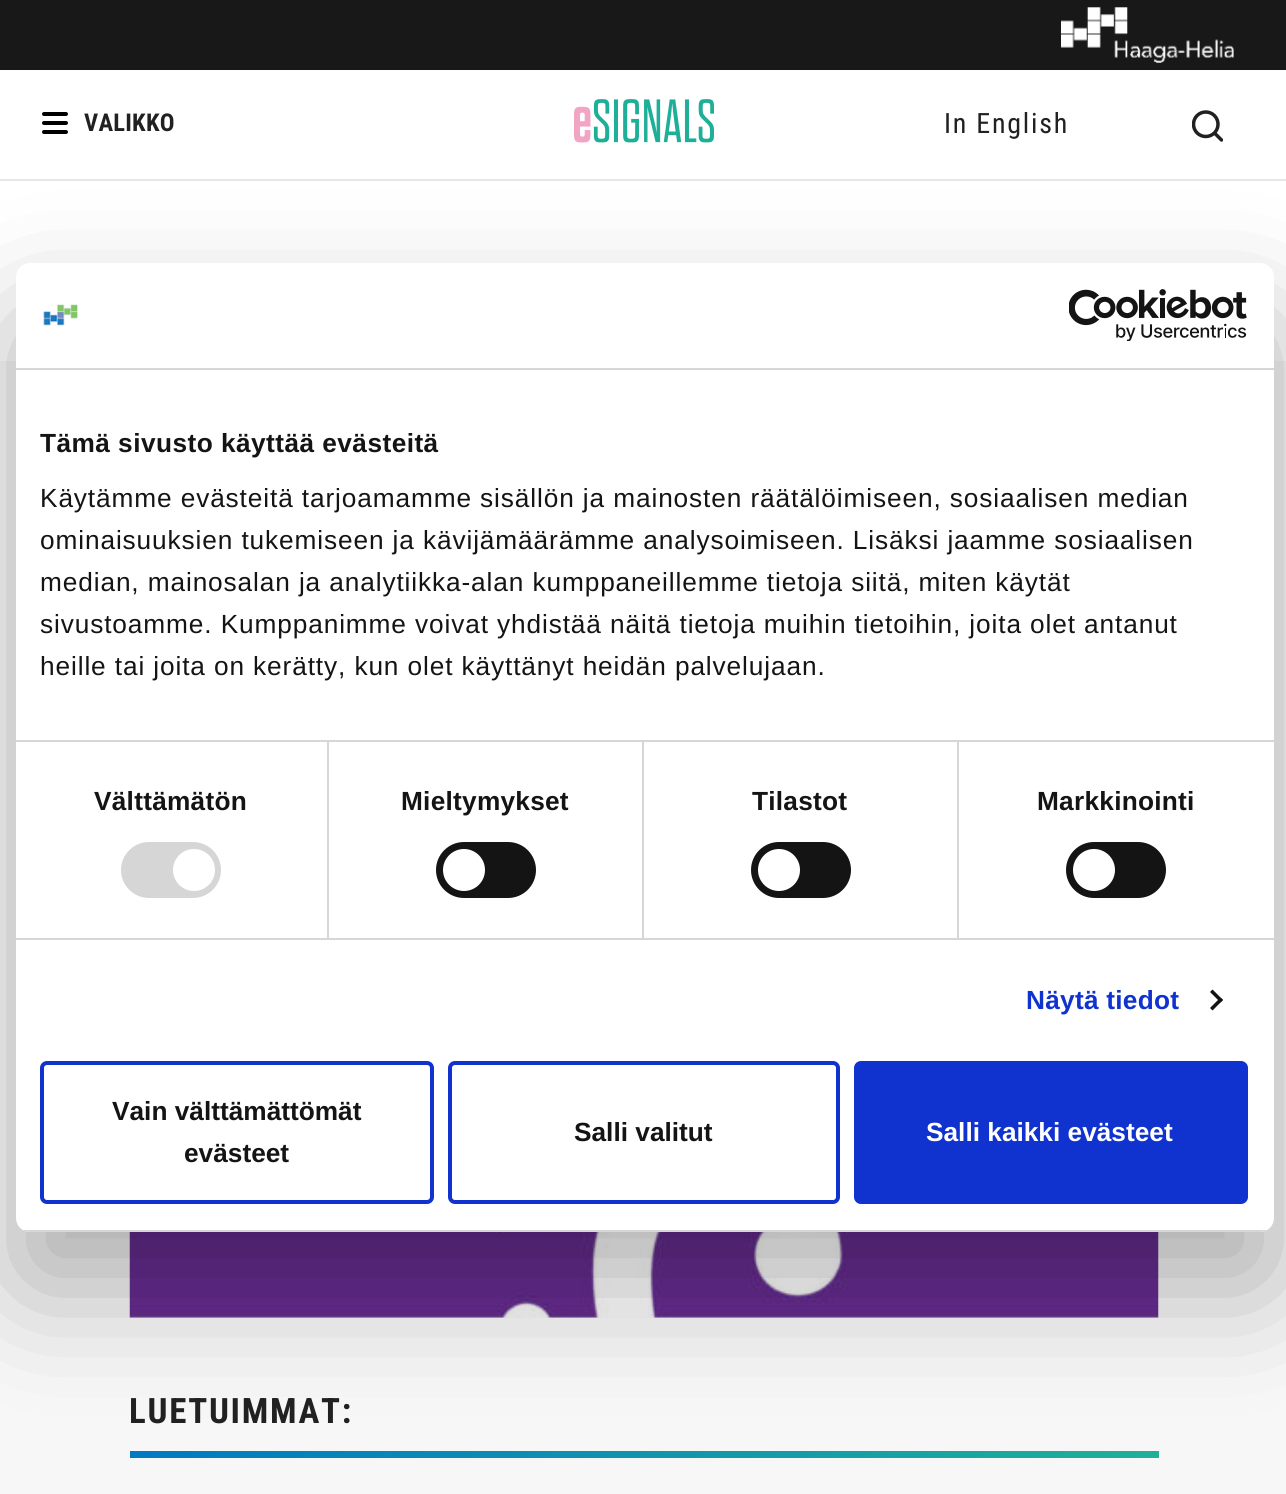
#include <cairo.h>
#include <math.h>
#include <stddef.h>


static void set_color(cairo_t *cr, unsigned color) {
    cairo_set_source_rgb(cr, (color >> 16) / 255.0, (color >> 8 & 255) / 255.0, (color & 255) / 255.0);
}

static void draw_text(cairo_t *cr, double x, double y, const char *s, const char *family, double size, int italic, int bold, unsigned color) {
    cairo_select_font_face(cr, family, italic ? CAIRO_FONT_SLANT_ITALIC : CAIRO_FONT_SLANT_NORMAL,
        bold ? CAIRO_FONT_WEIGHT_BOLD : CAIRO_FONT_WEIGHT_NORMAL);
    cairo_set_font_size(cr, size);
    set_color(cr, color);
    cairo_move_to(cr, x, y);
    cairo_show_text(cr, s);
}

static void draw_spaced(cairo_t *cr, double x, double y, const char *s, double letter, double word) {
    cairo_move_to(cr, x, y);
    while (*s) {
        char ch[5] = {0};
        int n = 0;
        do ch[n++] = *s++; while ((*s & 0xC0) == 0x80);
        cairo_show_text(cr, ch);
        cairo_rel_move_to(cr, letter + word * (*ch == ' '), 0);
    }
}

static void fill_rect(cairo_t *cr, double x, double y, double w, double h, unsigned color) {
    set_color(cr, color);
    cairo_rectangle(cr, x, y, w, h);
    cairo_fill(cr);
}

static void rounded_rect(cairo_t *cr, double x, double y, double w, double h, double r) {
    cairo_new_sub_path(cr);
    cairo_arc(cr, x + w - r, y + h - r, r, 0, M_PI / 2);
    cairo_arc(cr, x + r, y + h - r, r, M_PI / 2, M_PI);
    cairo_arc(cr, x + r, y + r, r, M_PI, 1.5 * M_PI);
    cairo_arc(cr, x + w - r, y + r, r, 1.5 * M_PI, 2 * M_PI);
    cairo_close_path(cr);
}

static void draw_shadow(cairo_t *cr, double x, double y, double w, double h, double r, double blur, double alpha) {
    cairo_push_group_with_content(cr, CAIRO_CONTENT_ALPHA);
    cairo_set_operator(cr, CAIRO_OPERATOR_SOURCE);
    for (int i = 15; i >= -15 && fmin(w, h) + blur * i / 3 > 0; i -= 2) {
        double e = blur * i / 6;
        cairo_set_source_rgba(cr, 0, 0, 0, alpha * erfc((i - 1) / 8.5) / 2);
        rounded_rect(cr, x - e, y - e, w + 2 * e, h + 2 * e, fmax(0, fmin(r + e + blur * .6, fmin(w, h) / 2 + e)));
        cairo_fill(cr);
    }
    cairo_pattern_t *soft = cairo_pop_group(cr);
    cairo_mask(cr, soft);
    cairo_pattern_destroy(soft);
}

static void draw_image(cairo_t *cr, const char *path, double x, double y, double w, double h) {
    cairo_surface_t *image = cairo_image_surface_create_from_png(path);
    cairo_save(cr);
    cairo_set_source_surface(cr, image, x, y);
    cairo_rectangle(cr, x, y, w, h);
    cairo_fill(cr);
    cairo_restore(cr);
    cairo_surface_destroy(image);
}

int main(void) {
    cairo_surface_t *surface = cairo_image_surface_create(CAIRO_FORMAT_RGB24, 1286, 1494);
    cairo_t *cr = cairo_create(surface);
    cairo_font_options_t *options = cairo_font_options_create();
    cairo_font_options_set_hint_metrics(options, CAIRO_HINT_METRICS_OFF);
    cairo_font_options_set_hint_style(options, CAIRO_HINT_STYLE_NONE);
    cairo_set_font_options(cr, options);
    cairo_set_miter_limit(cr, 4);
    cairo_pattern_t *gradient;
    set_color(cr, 0xFFFFFF);
    cairo_paint(cr);
    fill_rect(cr, 0, 0, 1286, 70, 0x181818);
    draw_image(cr, "assets/img1.png", 1061, 7, 173, 56);
    fill_rect(cr, 0, 179, 1286, 2, 0xE6E6E6);
    set_color(cr, 0x000000);
    rounded_rect(cr, 42, 112, 26, 4, 2);
    cairo_fill(cr);
    rounded_rect(cr, 42, 121, 26, 4, 2);
    cairo_fill(cr);
    rounded_rect(cr, 42, 130, 26, 4, 2);
    cairo_fill(cr);
    cairo_select_font_face(cr, "Roboto Condensed", CAIRO_FONT_SLANT_NORMAL, CAIRO_FONT_WEIGHT_BOLD);
    cairo_set_font_size(cr, 24.5);
    set_color(cr, 0x212121);
    draw_spaced(cr, 84, 131, "VALIKKO", 0.25, 0);
    draw_image(cr, "assets/img2.png", 574, 99, 140, 44);
    cairo_select_font_face(cr, "Roboto Condensed", CAIRO_FONT_SLANT_NORMAL, CAIRO_FONT_WEIGHT_NORMAL);
    cairo_set_font_size(cr, 28);
    draw_spaced(cr, 944, 133, "In English", 1.75, 0);
    draw_image(cr, "assets/img3.png", 1192, 110, 31, 32);
    fill_rect(cr, 0, 361, 1286, 1133, 0xF7F7F7);
    draw_image(cr, "assets/img4.png", 129, 1232, 1030, 86);
    cairo_select_font_face(cr, "Roboto Condensed", CAIRO_FONT_SLANT_NORMAL, CAIRO_FONT_WEIGHT_BOLD);
    cairo_set_font_size(cr, 35);
    set_color(cr, 0x212121);
    draw_spaced(cr, 129, 1423, "LUETUIMMAT:", 1.75, 0);
    gradient = cairo_pattern_create_linear(385, 1195, 903, 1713);
    cairo_pattern_add_color_stop_rgba(gradient, 0, 0, 0.475, 0.761, 1);
    cairo_pattern_add_color_stop_rgba(gradient, 1, 0.122, 0.69, 0.6, 1);
    cairo_set_source(cr, gradient);
    cairo_pattern_destroy(gradient);
    cairo_rectangle(cr, 130, 1451, 1029, 7);
    cairo_fill(cr);
    set_color(cr, 0x000000);
    draw_shadow(cr, 16, 319, 1258, 969, 14, 59.5, 0.3);
    set_color(cr, 0xFFFFFF);
    rounded_rect(cr, 16, 263, 1258, 969, 14);
    cairo_fill(cr);
    fill_rect(cr, 16, 368, 1258, 2, 0xD6D6D6);
    draw_image(cr, "assets/img5.png", 43, 304, 35, 22);
    draw_image(cr, "assets/img6.png", 1069, 289, 178, 52);
    fill_rect(cr, 16, 740, 1258, 2, 0xD6D6D6);
    cairo_select_font_face(cr, "Liberation Sans", CAIRO_FONT_SLANT_NORMAL, CAIRO_FONT_WEIGHT_BOLD);
    cairo_set_font_size(cr, 26.25);
    set_color(cr, 0x141414);
    draw_spaced(cr, 40, 452, "Tämä sivusto käyttää evästeitä", 0.45, 0);
    cairo_select_font_face(cr, "Liberation Sans", CAIRO_FONT_SLANT_NORMAL, CAIRO_FONT_WEIGHT_NORMAL);
    draw_spaced(cr, 40, 507, "Käytämme evästeitä tarjoamamme sisällön ja mainosten räätälöimiseen, sosiaalisen median", 0.88, 0);
    draw_spaced(cr, 40, 549, "ominaisuuksien tukemiseen ja kävijämäärämme analysoimiseen. Lisäksi jaamme sosiaalisen", 0.88, 0);
    draw_spaced(cr, 40, 591, "median, mainosalan ja analytiikka-alan kumppaneillemme tietoja siitä, miten käytät", 0.88, 0);
    draw_spaced(cr, 40, 633, "sivustoamme. Kumppanimme voivat yhdistää näitä tietoja muihin tietoihin, joita olet antanut", 0.88, 0);
    draw_spaced(cr, 40, 675, "heille tai joita on kerätty, kun olet käyttänyt heidän palvelujaan.", 0.88, 0);
    fill_rect(cr, 16, 938, 1258, 2, 0xD6D6D6);
    fill_rect(cr, 327, 742, 2, 196, 0xD6D6D6);
    cairo_select_font_face(cr, "Liberation Sans", CAIRO_FONT_SLANT_NORMAL, CAIRO_FONT_WEIGHT_BOLD);
    set_color(cr, 0x141414);
    draw_spaced(cr, 94, 810, "Välttämätön", 0.25, 0);
    set_color(cr, 0xD6D6D6);
    rounded_rect(cr, 121, 842, 100, 56, 28);
    cairo_fill(cr);
    set_color(cr, 0xFFFFFF);
    cairo_arc(cr, 194, 870, 21, 0, 2 * M_PI);
    cairo_fill(cr);
    fill_rect(cr, 642, 742, 2, 196, 0xD6D6D6);
    set_color(cr, 0x141414);
    draw_spaced(cr, 401, 810, "Mieltymykset", 0.25, 0);
    rounded_rect(cr, 436, 842, 100, 56, 28);
    cairo_fill(cr);
    set_color(cr, 0xFFFFFF);
    cairo_arc(cr, 464, 870, 21, 0, 2 * M_PI);
    cairo_fill(cr);
    fill_rect(cr, 957, 742, 2, 196, 0xD6D6D6);
    set_color(cr, 0x141414);
    draw_spaced(cr, 752, 810, "Tilastot", 0.25, 0);
    rounded_rect(cr, 751, 842, 100, 56, 28);
    cairo_fill(cr);
    set_color(cr, 0xFFFFFF);
    cairo_arc(cr, 779, 870, 21, 0, 2 * M_PI);
    cairo_fill(cr);
    set_color(cr, 0x141414);
    draw_spaced(cr, 1037, 810, "Markkinointi", 0.25, 0);
    rounded_rect(cr, 1066, 842, 100, 56, 28);
    cairo_fill(cr);
    set_color(cr, 0xFFFFFF);
    cairo_arc(cr, 1094, 870, 21, 0, 2 * M_PI);
    cairo_fill(cr);
    set_color(cr, 0x1032CF);
    draw_spaced(cr, 1026, 1009, "Näytä tiedot", 0.25, 0);
    set_color(cr, 0x141414);
    cairo_new_path(cr);
    cairo_move_to(cr, 1212.5, 989.5);
    cairo_line_to(cr, 1223, 1000);
    cairo_line_to(cr, 1220.5, 1002.5);
    cairo_line_to(cr, 1210, 992);
    cairo_close_path(cr);
    cairo_fill(cr);
    cairo_new_path(cr);
    cairo_move_to(cr, 1220.5, 997.5);
    cairo_line_to(cr, 1223, 1000);
    cairo_line_to(cr, 1212.5, 1010.5);
    cairo_line_to(cr, 1210, 1008);
    cairo_close_path(cr);
    cairo_fill(cr);
    cairo_save(cr);
    rounded_rect(cr, 16, 263, 1258, 969, 14);
    cairo_clip(cr);
    fill_rect(cr, 16, 1230, 1258, 2, 0xD6D6D6);
    cairo_restore(cr);
    rounded_rect(cr, 42, 1063, 390, 139, 5);
    set_color(cr, 0x1032CF);
    cairo_set_line_width(cr, 4);
    cairo_stroke(cr);
    draw_text(cr, 112, 1120, "Vain välttämättömät", "Liberation Sans", 26.25, 0, 1, 0x141414);
    draw_text(cr, 184, 1162, "evästeet", "Liberation Sans", 26.25, 0, 1, 0x141414);
    rounded_rect(cr, 450, 1063, 388, 139, 5);
    set_color(cr, 0x1032CF);
    cairo_stroke(cr);
    draw_text(cr, 574, 1141, "Salli valitut", "Liberation Sans", 26.25, 0, 1, 0x141414);
    set_color(cr, 0x1032CF);
    rounded_rect(cr, 856, 1063, 390, 139, 5);
    cairo_fill_preserve(cr);
    cairo_stroke(cr);
    draw_text(cr, 926, 1141, "Salli kaikki evästeet", "Liberation Sans", 26.25, 0, 1, 0xFFFFFF);
    cairo_surface_write_to_png(surface, "output.png");
    cairo_font_options_destroy(options);
    cairo_destroy(cr);
    cairo_surface_destroy(surface);
    return 0;
}
